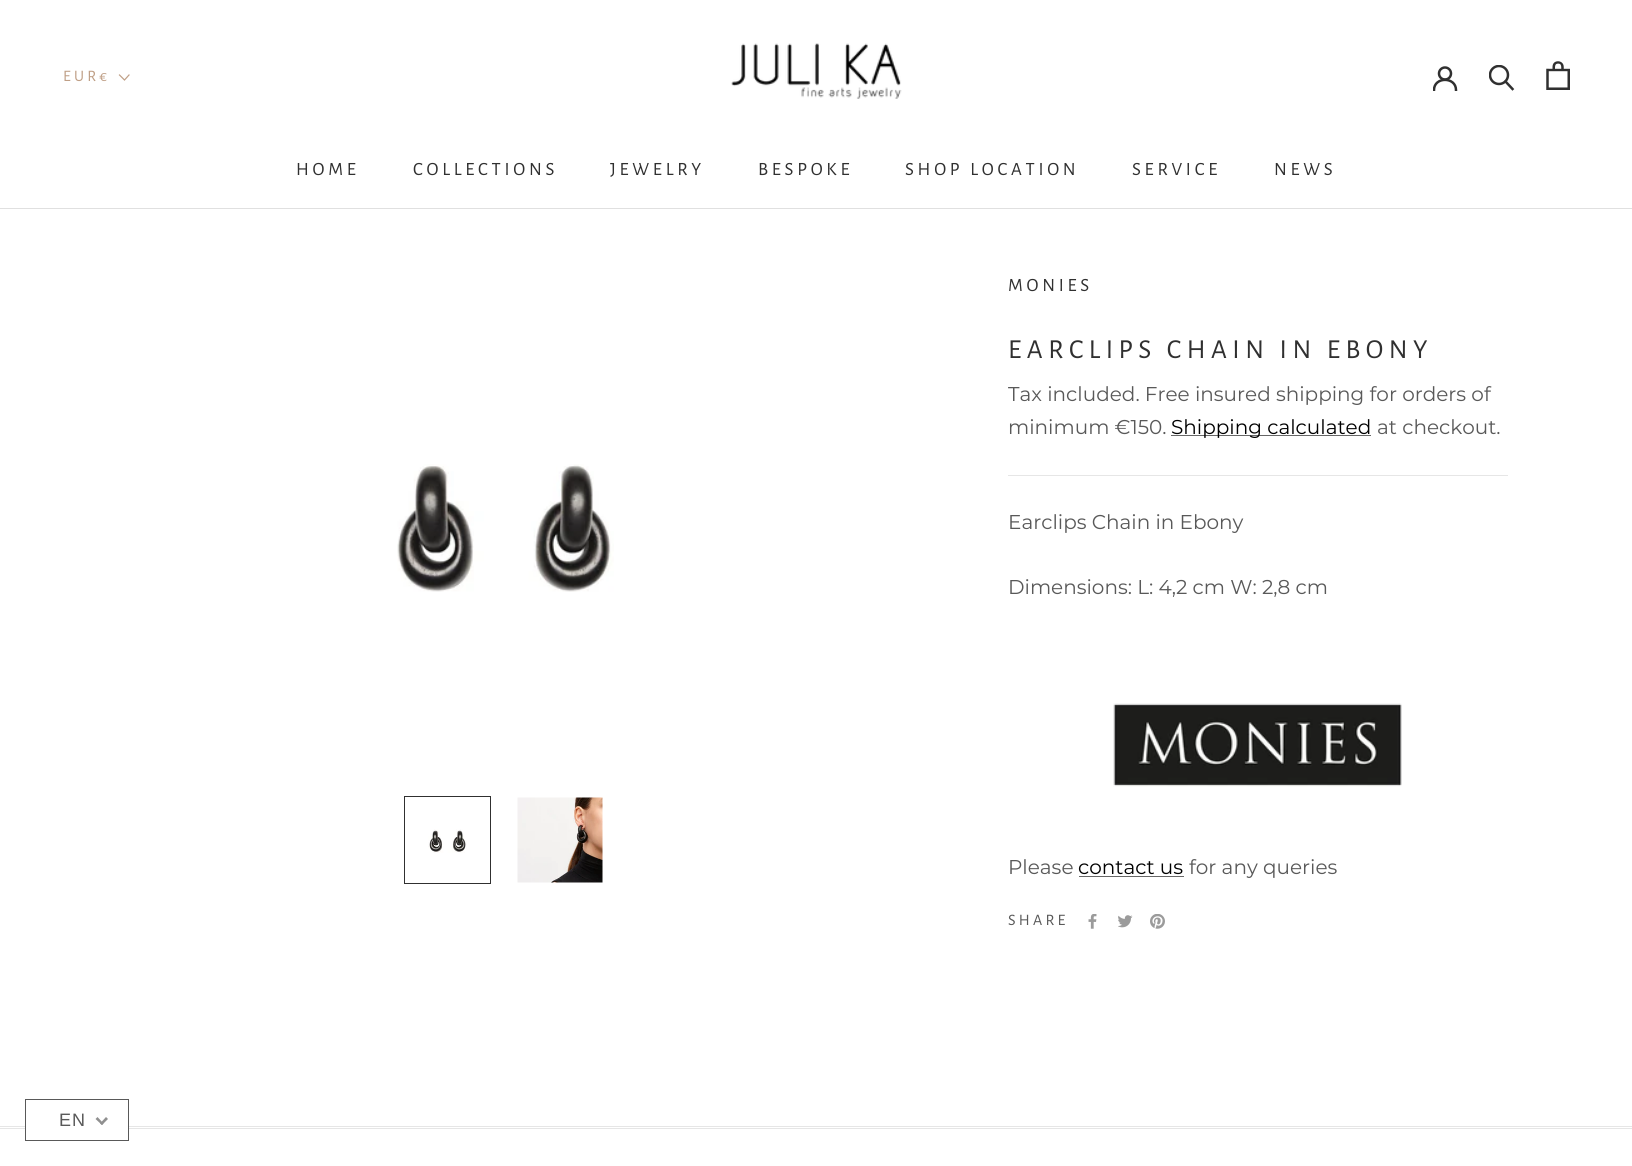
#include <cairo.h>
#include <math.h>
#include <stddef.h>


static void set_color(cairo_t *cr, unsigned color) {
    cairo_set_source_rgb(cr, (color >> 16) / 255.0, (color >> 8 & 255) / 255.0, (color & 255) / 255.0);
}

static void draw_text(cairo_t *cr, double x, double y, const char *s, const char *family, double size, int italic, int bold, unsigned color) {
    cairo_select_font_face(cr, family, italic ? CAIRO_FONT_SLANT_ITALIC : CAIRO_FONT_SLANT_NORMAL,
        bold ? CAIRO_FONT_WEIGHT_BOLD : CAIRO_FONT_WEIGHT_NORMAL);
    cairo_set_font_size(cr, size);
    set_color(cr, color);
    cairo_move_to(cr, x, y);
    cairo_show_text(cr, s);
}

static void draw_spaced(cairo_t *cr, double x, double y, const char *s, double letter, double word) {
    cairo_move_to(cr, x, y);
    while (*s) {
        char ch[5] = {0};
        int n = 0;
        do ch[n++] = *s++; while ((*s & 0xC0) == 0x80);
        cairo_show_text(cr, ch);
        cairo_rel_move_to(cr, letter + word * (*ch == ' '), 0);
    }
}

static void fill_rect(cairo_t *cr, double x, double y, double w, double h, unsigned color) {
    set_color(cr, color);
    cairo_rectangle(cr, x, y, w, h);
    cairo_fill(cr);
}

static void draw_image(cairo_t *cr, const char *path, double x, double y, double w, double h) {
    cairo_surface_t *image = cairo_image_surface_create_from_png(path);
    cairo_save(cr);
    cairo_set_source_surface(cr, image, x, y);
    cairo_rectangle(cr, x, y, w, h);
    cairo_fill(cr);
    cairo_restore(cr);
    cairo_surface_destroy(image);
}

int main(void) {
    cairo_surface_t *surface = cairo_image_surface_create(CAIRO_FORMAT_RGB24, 1632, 1166);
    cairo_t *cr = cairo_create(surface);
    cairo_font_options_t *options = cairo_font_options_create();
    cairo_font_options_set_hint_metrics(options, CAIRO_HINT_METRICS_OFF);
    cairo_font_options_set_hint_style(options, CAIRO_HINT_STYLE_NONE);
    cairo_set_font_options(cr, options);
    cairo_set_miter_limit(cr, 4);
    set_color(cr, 0xFFFFFF);
    cairo_paint(cr);
    fill_rect(cr, 0, 208, 1632, 1, 0xE0E0E0);
    draw_image(cr, "assets/img1.png", 731, 43, 171, 56);
    cairo_save(cr);
    cairo_rectangle(cr, 1433, 66, 25, 25);
    cairo_clip(cr);
    cairo_new_path(cr);
    cairo_move_to(cr, 1434, 90);
    cairo_curve_to(cr, 1434, 76.5, 1456, 76.5, 1456, 90);
    set_color(cr, 0x303030);
    cairo_set_line_width(cr, 2.5);
    cairo_set_line_cap(cr, CAIRO_LINE_CAP_SQUARE);
    cairo_stroke(cr);
    cairo_restore(cr);
    cairo_arc(cr, 1445, 73.5, 6, 0, 2 * M_PI);
    set_color(cr, 0x303030);
    cairo_set_line_width(cr, 2.5);
    cairo_stroke(cr);
    cairo_new_path(cr);
    cairo_move_to(cr, 1512.5, 89);
    cairo_line_to(cr, 1505.5, 81.5);
    cairo_set_line_cap(cr, CAIRO_LINE_CAP_SQUARE);
    cairo_stroke(cr);
    cairo_save(cr);
    cairo_rectangle(cr, 1489, 65, 26, 26);
    cairo_clip(cr);
    cairo_arc(cr, 1499, 75, 9, 0, 2 * M_PI);
    cairo_set_line_cap(cr, CAIRO_LINE_CAP_BUTT);
    cairo_stroke(cr);
    cairo_restore(cr);
    draw_image(cr, "assets/img2.png", 1546, 61, 24, 29);
    cairo_select_font_face(cr, "Alegreya Sans", CAIRO_FONT_SLANT_NORMAL, CAIRO_FONT_WEIGHT_NORMAL);
    cairo_set_font_size(cr, 16);
    set_color(cr, 0xBF9F86);
    draw_spaced(cr, 63, 81, "EUR€", 3.25, 0);
    cairo_new_path(cr);
    cairo_move_to(cr, 129, 75);
    cairo_line_to(cr, 124.5, 80);
    cairo_line_to(cr, 119.5, 75);
    cairo_set_line_width(cr, 1.2);
    cairo_stroke(cr);
    cairo_set_font_size(cr, 18.75);
    set_color(cr, 0x303030);
    draw_spaced(cr, 296, 175, "HOME", 3.75, 0);
    draw_spaced(cr, 413, 175, "COLLECTIONS", 3.75, 0);
    draw_spaced(cr, 610, 175, "JEWELRY", 3.75, 0);
    draw_spaced(cr, 758, 175, "BESPOKE", 3.75, 0);
    draw_spaced(cr, 905, 175, "SHOP LOCATION", 3.75, 0);
    draw_spaced(cr, 1132, 175, "SERVICE", 3.75, 0);
    draw_spaced(cr, 1274, 175, "NEWS", 3.75, 0);
    draw_image(cr, "assets/img3.png", 397, 464, 217, 128);
    cairo_rectangle(cr, 404.5, 796.5, 86, 87);
    cairo_set_line_width(cr, 1);
    cairo_set_line_cap(cr, CAIRO_LINE_CAP_BUTT);
    cairo_stroke(cr);
    draw_image(cr, "assets/img4.png", 428, 829, 39, 24);
    draw_image(cr, "assets/img5.png", 517, 797, 86, 86);
    draw_spaced(cr, 1008, 291, "MONIES", 3.75, 0);
    cairo_set_font_size(cr, 27.5);
    draw_spaced(cr, 1008, 358, "EARCLIPS CHAIN IN EBONY", 5.5, 0);
    draw_text(cr, 1008, 401, "Tax included. Free insured shipping for orders of", "Montserrat", 20, 0, 0, 0x595959);
    draw_text(cr, 1008, 434, "minimum €150.", "Montserrat", 20, 0, 0, 0x595959);
    fill_rect(cr, 1171, 435, 200, 1, 0x666666);
    draw_text(cr, 1171, 434, "Shipping calculated", "Montserrat", 20, 0, 0, 0x000000);
    draw_text(cr, 1377, 434, "at checkout.", "Montserrat", 20, 0, 0, 0x595959);
    fill_rect(cr, 1008, 475, 500, 1, 0xE6E6E6);
    draw_text(cr, 1008, 529, "Earclips Chain in Ebony", "Montserrat", 20, 0, 0, 0x595959);
    draw_text(cr, 1008, 594, "Dimensions: L: 4,2 cm W: 2,8 cm", "Montserrat", 20, 0, 0, 0x595959);
    draw_image(cr, "assets/img6.png", 1113, 703, 289, 84);
    draw_text(cr, 1008, 874, "Please", "Montserrat", 20, 0, 0, 0x595959);
    draw_text(cr, 1078, 874, "contact us", "Montserrat", 20, 0, 0, 0x000000);
    fill_rect(cr, 1079, 876, 105, 1, 0x666666);
    draw_text(cr, 1189, 874, "for any queries", "Montserrat", 20, 0, 0, 0x595959);
    cairo_select_font_face(cr, "Alegreya Sans", CAIRO_FONT_SLANT_NORMAL, CAIRO_FONT_WEIGHT_NORMAL);
    cairo_set_font_size(cr, 16);
    draw_spaced(cr, 1008, 925, "SHARE", 3.25, 0);
    draw_image(cr, "assets/img7.png", 1088, 914, 9, 15);
    draw_image(cr, "assets/img8.png", 1118, 915, 15, 13);
    draw_image(cr, "assets/img9.png", 1150, 914, 15, 15);
    fill_rect(cr, 0, 1126, 1632, 1, 0xE6E6E6);
    fill_rect(cr, 0, 1128, 1632, 1, 0xE6E6E6);
    fill_rect(cr, 26, 1126, 102, 3, 0xFFFFFF);
    cairo_rectangle(cr, 25.5, 1099.5, 103, 41);
    set_color(cr, 0x595959);
    cairo_stroke(cr);
    cairo_select_font_face(cr, "Liberation Sans", CAIRO_FONT_SLANT_NORMAL, CAIRO_FONT_WEIGHT_NORMAL);
    cairo_set_font_size(cr, 18);
    draw_spaced(cr, 59, 1126, "EN", 1, 0);
    set_color(cr, 0x909090);
    cairo_new_path(cr);
    cairo_move_to(cr, 106, 1117);
    cairo_line_to(cr, 108, 1119);
    cairo_line_to(cr, 102, 1125);
    cairo_line_to(cr, 100, 1123.5);
    cairo_close_path(cr);
    cairo_fill(cr);
    cairo_new_path(cr);
    cairo_move_to(cr, 97.5, 1117);
    cairo_line_to(cr, 103.5, 1123.5);
    cairo_line_to(cr, 102, 1125);
    cairo_line_to(cr, 95.5, 1119);
    cairo_close_path(cr);
    cairo_fill(cr);
    cairo_surface_write_to_png(surface, "output.png");
    cairo_font_options_destroy(options);
    cairo_destroy(cr);
    cairo_surface_destroy(surface);
    return 0;
}
